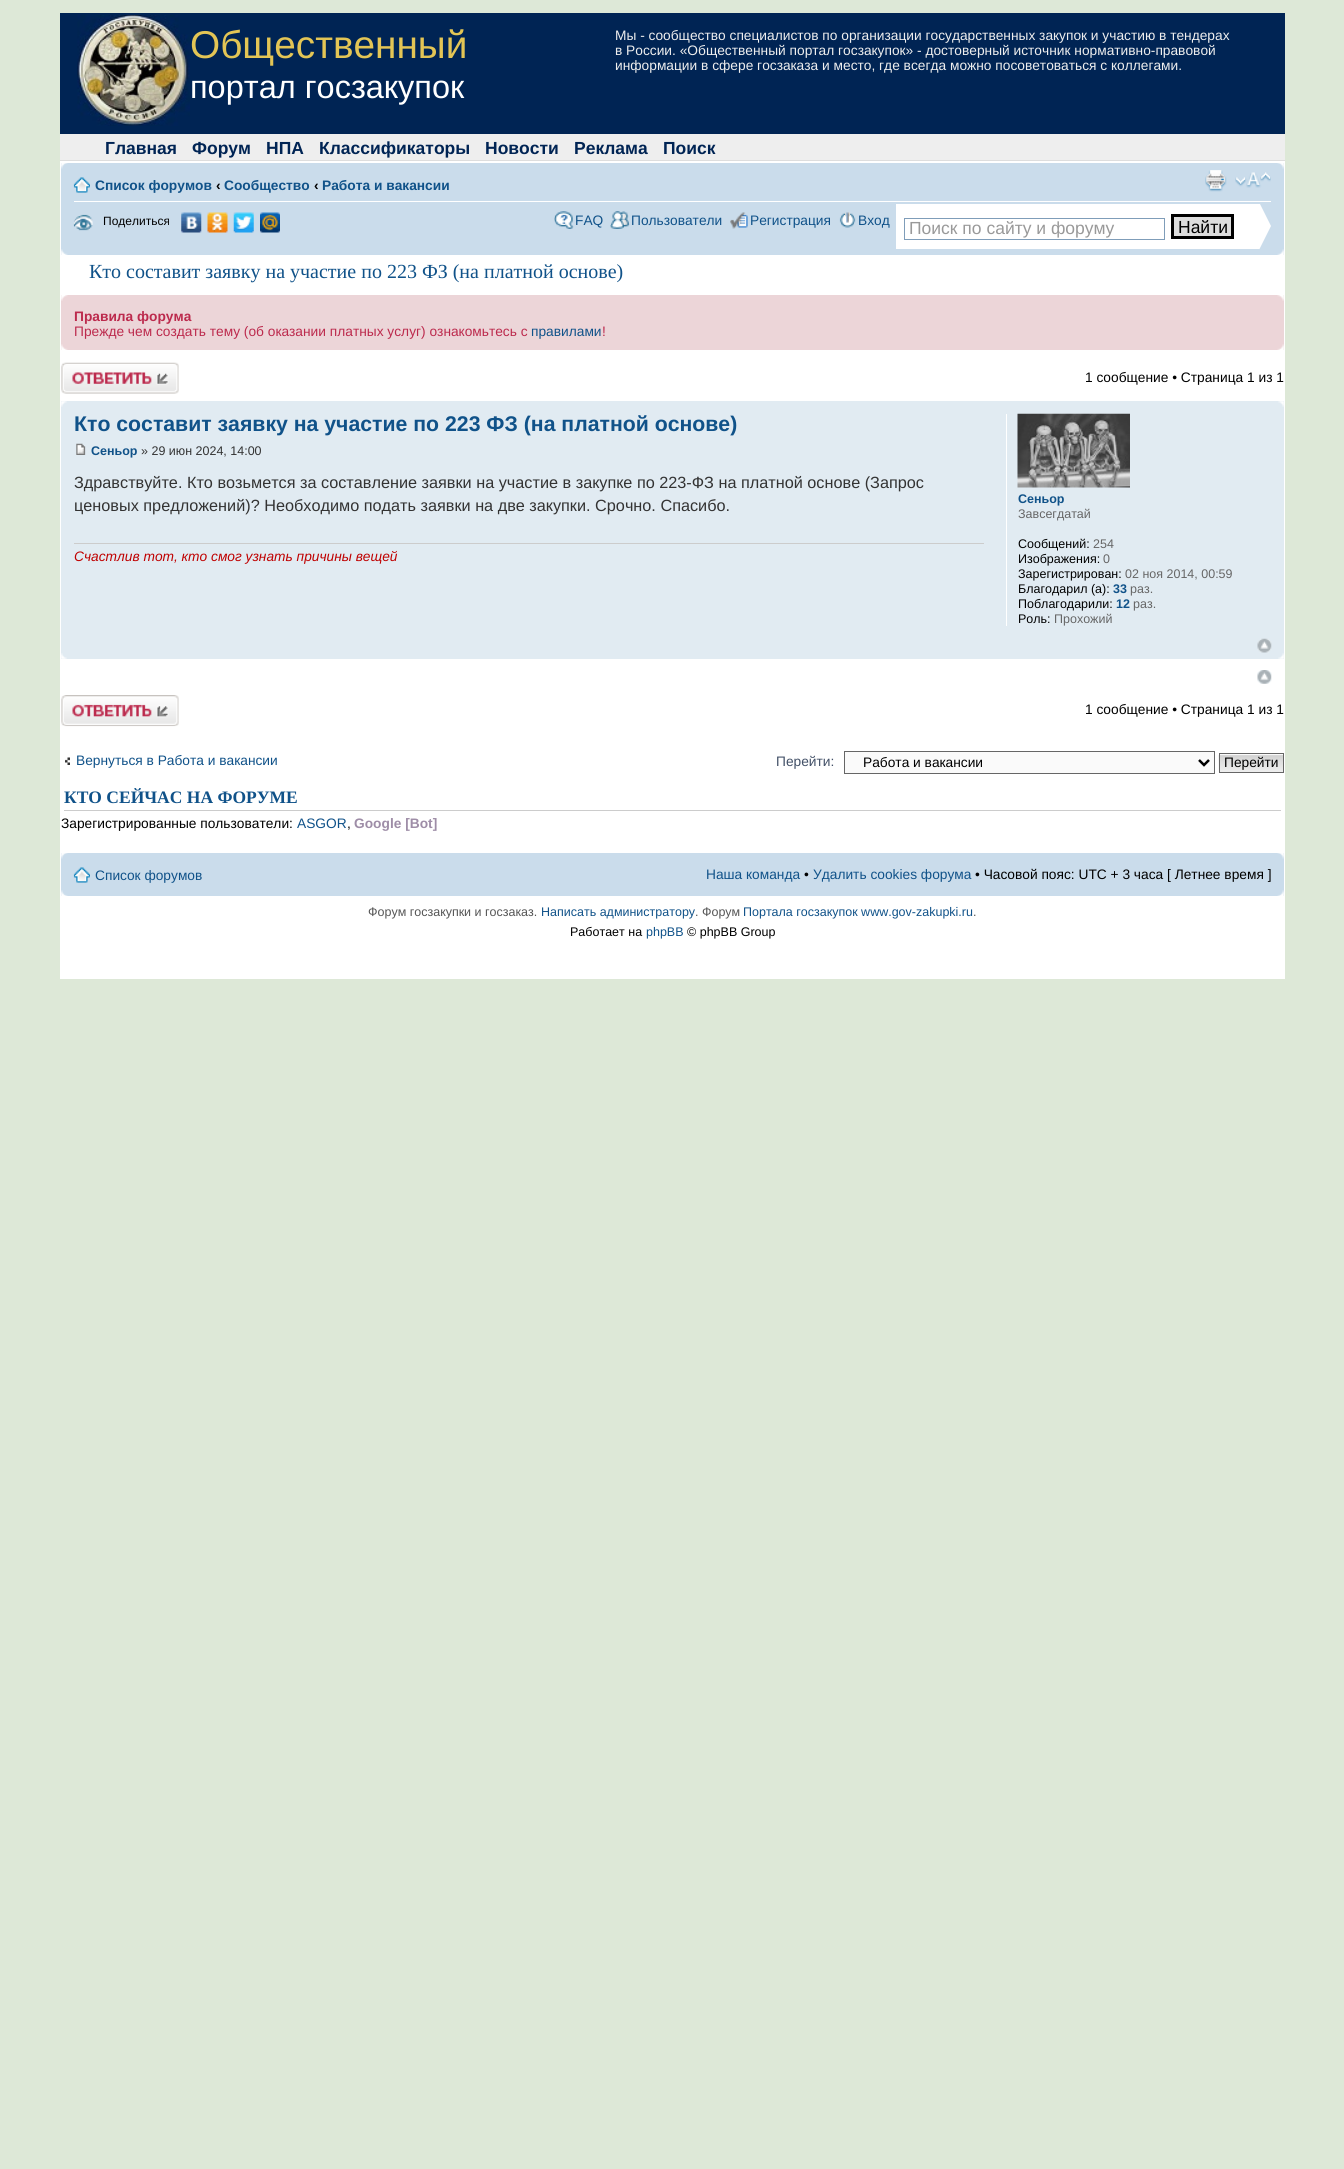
#include <cairo.h>
#include <math.h>
#include <stddef.h>


static void set_color(cairo_t *cr, unsigned color) {
    cairo_set_source_rgb(cr, (color >> 16) / 255.0, (color >> 8 & 255) / 255.0, (color & 255) / 255.0);
}

static void draw_text(cairo_t *cr, double x, double y, const char *s, const char *family, double size, int italic, int bold, unsigned color) {
    cairo_select_font_face(cr, family, italic ? CAIRO_FONT_SLANT_ITALIC : CAIRO_FONT_SLANT_NORMAL,
        bold ? CAIRO_FONT_WEIGHT_BOLD : CAIRO_FONT_WEIGHT_NORMAL);
    cairo_set_font_size(cr, size);
    set_color(cr, color);
    cairo_move_to(cr, x, y);
    cairo_show_text(cr, s);
}

static void fill_rect(cairo_t *cr, double x, double y, double w, double h, unsigned color) {
    set_color(cr, color);
    cairo_rectangle(cr, x, y, w, h);
    cairo_fill(cr);
}

static void draw_image(cairo_t *cr, const char *path, double x, double y, double w, double h) {
    cairo_surface_t *image = cairo_image_surface_create_from_png(path);
    cairo_save(cr);
    cairo_set_source_surface(cr, image, x, y);
    cairo_rectangle(cr, x, y, w, h);
    cairo_fill(cr);
    cairo_restore(cr);
    cairo_surface_destroy(image);
}

int main(void) {
    cairo_surface_t *surface = cairo_image_surface_create(CAIRO_FORMAT_RGB24, 1344, 2169);
    cairo_t *cr = cairo_create(surface);
    cairo_font_options_t *options = cairo_font_options_create();
    cairo_font_options_set_hint_metrics(options, CAIRO_HINT_METRICS_OFF);
    cairo_font_options_set_hint_style(options, CAIRO_HINT_STYLE_NONE);
    cairo_set_font_options(cr, options);
    cairo_set_miter_limit(cr, 4);
    set_color(cr, 0xDDE8D7);
    cairo_paint(cr);
    fill_rect(cr, 60, 13, 1225, 121, 0x002454);
    draw_image(cr, "assets/img1.png", 77, 15, 113, 111);
    draw_text(cr, 190, 58, "Общественный", "Liberation Sans", 38.75, 0, 0, 0xE3C555);
    draw_text(cr, 190, 98, "портал госзакупок", "Liberation Sans", 32.5, 0, 0, 0xFFFFFF);
    draw_text(cr, 615, 40, "Мы - сообщество специалистов по организации государственных закупок и участию в тендерах", "Liberation Sans", 13.75, 0, 0, 0xEEEEEE);
    draw_text(cr, 615, 55, "в России. «Общественный портал госзакупок» - достоверный источник нормативно-правовой", "Liberation Sans", 13.75, 0, 0, 0xEEEEEE);
    draw_text(cr, 615, 70, "информации в сфере госзаказа и место, где всегда можно посоветоваться с коллегами.", "Liberation Sans", 13.75, 0, 0, 0xEEEEEE);
    fill_rect(cr, 60, 134, 1225, 26, 0xEEEEEE);
    fill_rect(cr, 60, 160, 1225, 1, 0xDDDDDD);
    draw_text(cr, 105, 154, "Главная", "Liberation Sans", 17.5, 0, 1, 0x002454);
    draw_text(cr, 192, 154, "Форум", "Liberation Sans", 17.5, 0, 1, 0x002454);
    draw_text(cr, 266, 154, "НПА", "Liberation Sans", 17.5, 0, 1, 0x002454);
    draw_text(cr, 319, 154, "Классификаторы", "Liberation Sans", 17.5, 0, 1, 0x002454);
    draw_text(cr, 485, 154, "Новости", "Liberation Sans", 17.5, 0, 1, 0x002454);
    draw_text(cr, 574, 154, "Реклама", "Liberation Sans", 17.5, 0, 1, 0x002454);
    draw_text(cr, 663, 154, "Поиск", "Liberation Sans", 17.5, 0, 1, 0x002454);
    fill_rect(cr, 60, 161, 1225, 818, 0xFFFFFF);
    fill_rect(cr, 61, 163, 1223, 92, 0xCADCEB);
    draw_image(cr, "assets/img2.png", 61, 163, 7, 6);
    draw_image(cr, "assets/img3.png", 1277, 163, 7, 6);
    fill_rect(cr, 74, 201, 1197, 1, 0xFFFFFF);
    draw_image(cr, "assets/img4.png", 73, 177, 17, 16);
    draw_text(cr, 95, 190, "Список форумов", "Liberation Sans", 13.75, 0, 1, 0x105289);
    draw_text(cr, 216, 190, "‹", "Liberation Sans", 13.75, 0, 1, 0x000000);
    draw_text(cr, 224, 190, "Сообщество", "Liberation Sans", 13.75, 0, 1, 0x105289);
    draw_text(cr, 314, 190, "‹", "Liberation Sans", 13.75, 0, 1, 0x000000);
    draw_text(cr, 322, 190, "Работа и вакансии", "Liberation Sans", 13.75, 0, 1, 0x105289);
    draw_image(cr, "assets/img5.png", 1205, 170, 22, 22);
    draw_image(cr, "assets/img6.png", 1235, 172, 36, 16);
    draw_image(cr, "assets/img7.png", 73, 214, 20, 17);
    draw_text(cr, 103, 225, "Поделиться", "Liberation Sans", 12, 0, 0, 0x000000);
    draw_image(cr, "assets/img8.png", 181, 212, 21, 21);
    draw_image(cr, "assets/img9.png", 207, 212, 21, 21);
    draw_image(cr, "assets/img10.png", 233, 212, 21, 21);
    draw_image(cr, "assets/img11.png", 260, 212, 20, 21);
    draw_image(cr, "assets/img12.png", 554, 211, 20, 18);
    draw_text(cr, 575, 225, "FAQ", "Liberation Sans", 13.75, 0, 0, 0x105289);
    draw_image(cr, "assets/img13.png", 610, 211, 20, 18);
    draw_text(cr, 631, 225, "Пользователи", "Liberation Sans", 13.75, 0, 0, 0x105289);
    draw_image(cr, "assets/img14.png", 730, 212, 18, 17);
    draw_text(cr, 750, 225, "Регистрация", "Liberation Sans", 13.75, 0, 0, 0x105289);
    draw_image(cr, "assets/img15.png", 839, 212, 17, 16);
    draw_text(cr, 858, 225, "Вход", "Liberation Sans", 13.75, 0, 0, 0x105289);
    fill_rect(cr, 896, 204, 338, 45, 0xFFFFFF);
    cairo_rectangle(cr, 904.5, 218.5, 260, 21);
    set_color(cr, 0x7F9DB9);
    cairo_set_line_width(cr, 1);
    cairo_stroke(cr);
    draw_text(cr, 909, 234, "Поиск по сайту и форуму", "Liberation Sans", 17.5, 0, 0, 0x999999);
    set_color(cr, 0xDDDDDD);
    cairo_rectangle(cr, 1172.5, 215.5, 60, 22);
    cairo_fill_preserve(cr);
    set_color(cr, 0x000000);
    cairo_set_line_width(cr, 3);
    cairo_stroke(cr);
    draw_text(cr, 1178, 233, "Найти", "Liberation Sans", 17.5, 0, 0, 0x000000);
    cairo_save(cr);
    cairo_rectangle(cr, 1234, 204, 37, 45);
    cairo_clip(cr);
    set_color(cr, 0xFFFFFF);
    cairo_new_path(cr);
    cairo_move_to(cr, 1234, 300);
    cairo_line_to(cr, 1234, 152);
    cairo_line_to(cr, 1271, 226);
    cairo_close_path(cr);
    cairo_fill(cr);
    cairo_restore(cr);
    draw_image(cr, "assets/img16.png", 61, 249, 7, 6);
    draw_image(cr, "assets/img17.png", 1277, 249, 7, 6);
    draw_text(cr, 89, 278, "Кто составит заявку на участие по 223 ФЗ (на платной основе)", "Liberation Serif", 20, 0, 0, 0x105289);
    fill_rect(cr, 61, 295, 1223, 55, 0xECD5D8);
    draw_image(cr, "assets/img18.png", 61, 295, 7, 6);
    draw_image(cr, "assets/img19.png", 1277, 295, 7, 6);
    draw_text(cr, 74, 321, "Правила форума", "Liberation Sans", 13.75, 0, 1, 0xBC2A4D);
    draw_text(cr, 74, 336, "Прежде чем создать тему (об оказании платных услуг) ознакомьтесь с", "Liberation Sans", 13.75, 0, 0, 0xBC2A4D);
    draw_text(cr, 531, 336, "правилами", "Liberation Sans", 13.75, 0, 0, 0x105289);
    draw_text(cr, 602, 336, "!", "Liberation Sans", 13.75, 0, 0, 0xBC2A4D);
    draw_image(cr, "assets/img20.png", 61, 344, 7, 6);
    draw_image(cr, "assets/img21.png", 1277, 344, 7, 6);
    draw_image(cr, "assets/img22.png", 61, 362, 118, 32);
    draw_text(cr, 1085, 382, "1 сообщение • Страница 1 из 1", "Liberation Sans", 13.75, 0, 0, 0x000000);
    fill_rect(cr, 61, 401, 1223, 258, 0xE1EBF2);
    draw_image(cr, "assets/img23.png", 61, 401, 6, 6);
    draw_image(cr, "assets/img24.png", 1278, 401, 6, 6);
    draw_text(cr, 74, 431, "Кто составит заявку на участие по 223 ФЗ (на платной основе)", "Liberation Sans", 21.25, 0, 1, 0x105289);
    draw_image(cr, "assets/img25.png", 76, 443, 10, 12);
    draw_text(cr, 91, 455, "Сеньор", "Liberation Sans", 12.5, 0, 1, 0x105289);
    draw_text(cr, 141, 455, "» 29 июн 2024, 14:00", "Liberation Sans", 12.5, 0, 0, 0x333333);
    draw_text(cr, 74, 488, "Здравствуйте. Кто возьмется за составление заявки на участие в закупке по 223-ФЗ на платной основе (Запрос", "Liberation Sans", 16.25, 0, 0, 0x333333);
    draw_text(cr, 74, 511, "ценовых предложений)? Необходимо подать заявки на две закупки. Срочно. Спасибо.", "Liberation Sans", 16.25, 0, 0, 0x333333);
    fill_rect(cr, 74, 543, 910, 1, 0xCCCCCC);
    draw_text(cr, 74, 561, "Счастлив тот, кто смог узнать причины вещей", "Liberation Sans", 13.75, 1, 0, 0xBF0000);
    fill_rect(cr, 1006, 414, 1, 212, 0xFFFFFF);
    draw_image(cr, "assets/img26.png", 1017, 413, 113, 75);
    draw_text(cr, 1018, 503, "Сеньор", "Liberation Sans", 12.5, 0, 1, 0x105289);
    draw_text(cr, 1018, 518, "Завсегдатай", "Liberation Sans", 12.5, 0, 0, 0x666666);
    draw_text(cr, 1018, 548, "Сообщений:", "Liberation Sans", 12.5, 0, 0, 0x000000);
    draw_text(cr, 1093, 548, "254", "Liberation Sans", 12.5, 0, 0, 0x666666);
    draw_text(cr, 1018, 563, "Изображения:", "Liberation Sans", 12.5, 0, 0, 0x000000);
    draw_text(cr, 1103, 563, "0", "Liberation Sans", 12.5, 0, 0, 0x666666);
    draw_text(cr, 1018, 578, "Зарегистрирован:", "Liberation Sans", 12.5, 0, 0, 0x000000);
    draw_text(cr, 1125, 578, "02 ноя 2014, 00:59", "Liberation Sans", 12.5, 0, 0, 0x666666);
    draw_text(cr, 1018, 593, "Благодарил (а):", "Liberation Sans", 12.5, 0, 0, 0x000000);
    draw_text(cr, 1113, 593, "33", "Liberation Sans", 12.5, 0, 1, 0x105289);
    draw_text(cr, 1130, 593, "раз.", "Liberation Sans", 12.5, 0, 0, 0x666666);
    draw_text(cr, 1018, 608, "Поблагодарили:", "Liberation Sans", 12.5, 0, 0, 0x000000);
    draw_text(cr, 1116, 608, "12", "Liberation Sans", 12.5, 0, 1, 0x105289);
    draw_text(cr, 1133, 608, "раз.", "Liberation Sans", 12.5, 0, 0, 0x666666);
    draw_text(cr, 1018, 623, "Роль:", "Liberation Sans", 12.5, 0, 0, 0x000000);
    draw_text(cr, 1054, 623, "Прохожий", "Liberation Sans", 12.5, 0, 0, 0x666666);
    draw_image(cr, "assets/img27.png", 1257, 638, 15, 15);
    draw_image(cr, "assets/img28.png", 61, 653, 6, 6);
    draw_image(cr, "assets/img29.png", 1278, 653, 6, 6);
    draw_image(cr, "assets/img30.png", 1257, 670, 15, 14);
    draw_image(cr, "assets/img31.png", 61, 695, 118, 32);
    draw_text(cr, 1085, 714, "1 сообщение • Страница 1 из 1", "Liberation Sans", 13.75, 0, 0, 0x000000);
    draw_image(cr, "assets/img32.png", 65, 757, 5, 8);
    draw_text(cr, 76, 765, "Вернуться в Работа и вакансии", "Liberation Sans", 13.75, 0, 0, 0x105289);
    draw_text(cr, 776, 766, "Перейти:", "Liberation Sans", 13.75, 0, 0, 0x425067);
    set_color(cr, 0xFAFAFA);
    cairo_rectangle(cr, 844.5, 751.5, 370, 22);
    cairo_fill_preserve(cr);
    set_color(cr, 0x666666);
    cairo_set_line_width(cr, 1);
    cairo_stroke(cr);
    cairo_new_path(cr);
    cairo_move_to(cr, 1199, 760);
    cairo_line_to(cr, 1204, 765);
    cairo_line_to(cr, 1209, 760);
    set_color(cr, 0x000000);
    cairo_set_line_width(cr, 2.5);
    cairo_stroke(cr);
    draw_text(cr, 863, 767, "Работа и вакансии", "Liberation Sans", 13.75, 0, 0, 0x000000);
    fill_rect(cr, 1220, 754, 63, 1, 0xFAFAFA);
    draw_image(cr, "assets/img33.png", 1218, 755, 65, 18);
    cairo_rectangle(cr, 1219.5, 753.5, 64, 19);
    set_color(cr, 0x666666);
    cairo_set_line_width(cr, 1);
    cairo_stroke(cr);
    draw_text(cr, 1224, 767, "Перейти", "Liberation Sans", 13.75, 0, 0, 0x000000);
    fill_rect(cr, 64, 810, 1217, 1, 0xCCCCCC);
    draw_text(cr, 64, 803, "КТО СЕЙЧАС НА ФОРУМЕ", "Liberation Serif", 17.5, 0, 1, 0x105289);
    draw_text(cr, 61, 828, "Зарегистрированные пользователи:", "Liberation Sans", 13.75, 0, 0, 0x000000);
    draw_text(cr, 297, 828, "ASGOR", "Liberation Sans", 13.75, 0, 0, 0x105289);
    draw_text(cr, 347, 828, ",", "Liberation Sans", 13.75, 0, 0, 0x000000);
    draw_text(cr, 354, 828, "Google [Bot]", "Liberation Sans", 13.75, 0, 1, 0x9E8DA7);
    fill_rect(cr, 61, 853, 1223, 43, 0xCADCEB);
    draw_image(cr, "assets/img2.png", 61, 853, 7, 6);
    draw_image(cr, "assets/img3.png", 1277, 853, 7, 6);
    draw_image(cr, "assets/img4.png", 73, 867, 17, 16);
    draw_text(cr, 95, 880, "Список форумов", "Liberation Sans", 13.75, 0, 0, 0x105289);
    draw_text(cr, 706, 879, "Наша команда", "Liberation Sans", 13.75, 0, 0, 0x105289);
    draw_text(cr, 804, 879, "•", "Liberation Sans", 13.75, 0, 0, 0x000000);
    draw_text(cr, 813, 879, "Удалить cookies форума", "Liberation Sans", 13.75, 0, 0, 0x105289);
    draw_text(cr, 975, 879, "• Часовой пояс: UTC + 3 часа [ Летнее время ]", "Liberation Sans", 13.75, 0, 0, 0x000000);
    draw_image(cr, "assets/img34.png", 61, 890, 7, 6);
    draw_image(cr, "assets/img35.png", 1277, 890, 7, 6);
    draw_text(cr, 368, 916, "Форум госзакупки и госзаказ.", "Liberation Sans", 12.5, 0, 0, 0x555555);
    draw_text(cr, 541, 916, "Написать администратору", "Liberation Sans", 12.5, 0, 0, 0x105289);
    draw_text(cr, 695, 916, ". Форум", "Liberation Sans", 12.5, 0, 0, 0x555555);
    draw_text(cr, 743, 916, "Портала госзакупок www.gov-zakupki.ru", "Liberation Sans", 12.5, 0, 0, 0x105289);
    draw_text(cr, 973, 916, ".", "Liberation Sans", 12.5, 0, 0, 0x555555);
    draw_text(cr, 570, 936, "Работает на", "Liberation Sans", 12.5, 0, 0, 0x000000);
    draw_text(cr, 646, 936, "phpВВ", "Liberation Sans", 12.5, 0, 0, 0x105289);
    draw_text(cr, 687, 936, "© phpВВ Group", "Liberation Sans", 12.5, 0, 0, 0x000000);
    cairo_surface_write_to_png(surface, "output.png");
    cairo_font_options_destroy(options);
    cairo_destroy(cr);
    cairo_surface_destroy(surface);
    return 0;
}
